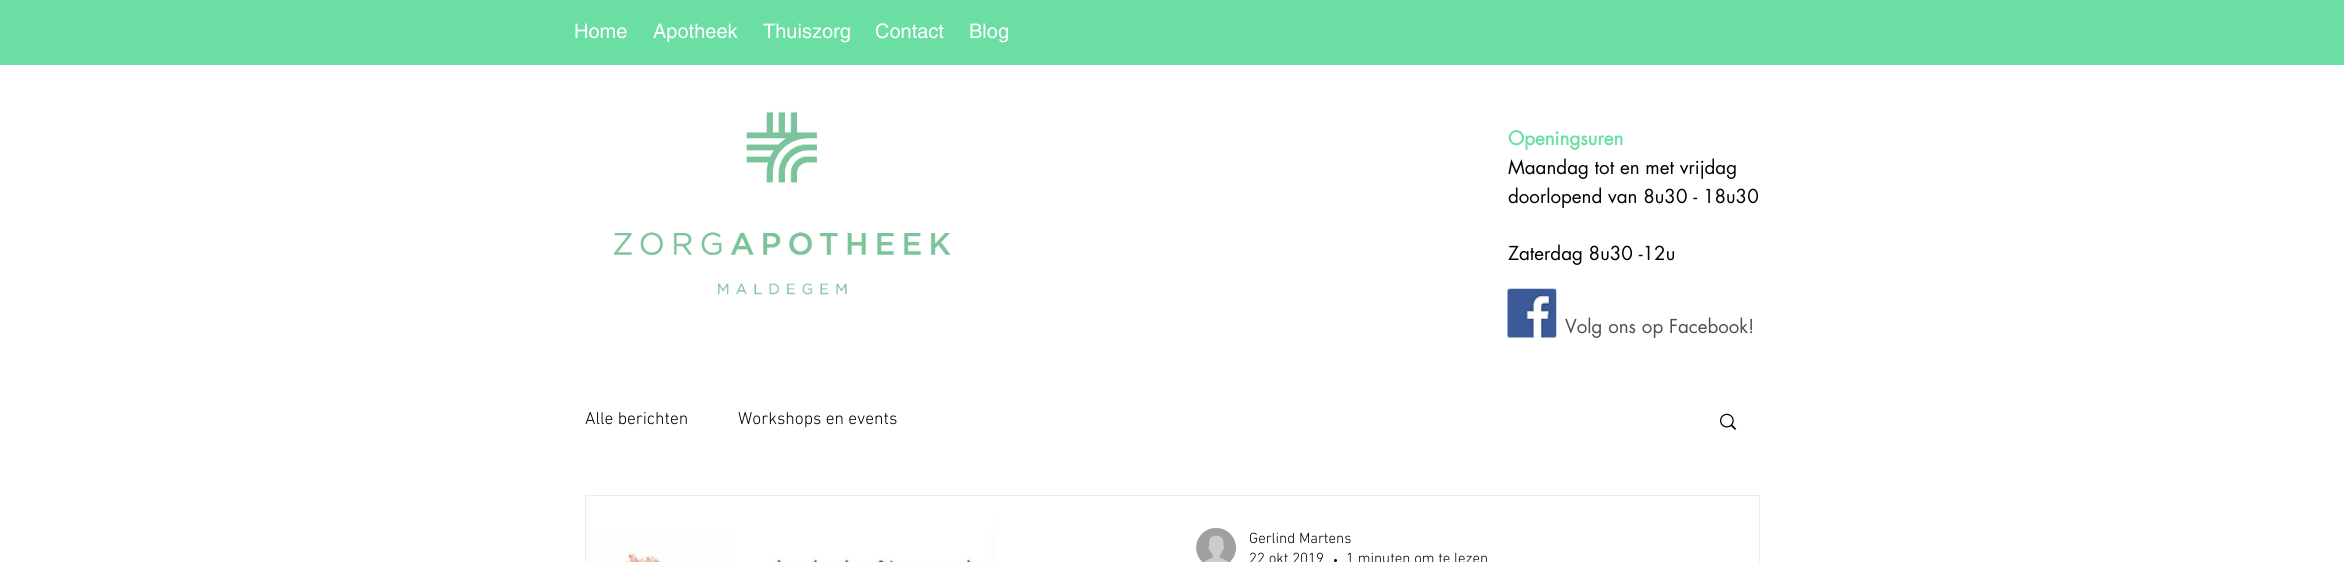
#include <cairo.h>
#include <math.h>
#include <stddef.h>


static void set_color(cairo_t *cr, unsigned color) {
    cairo_set_source_rgb(cr, (color >> 16) / 255.0, (color >> 8 & 255) / 255.0, (color & 255) / 255.0);
}

static void draw_text(cairo_t *cr, double x, double y, const char *s, const char *family, double size, int italic, int bold, unsigned color) {
    cairo_select_font_face(cr, family, italic ? CAIRO_FONT_SLANT_ITALIC : CAIRO_FONT_SLANT_NORMAL,
        bold ? CAIRO_FONT_WEIGHT_BOLD : CAIRO_FONT_WEIGHT_NORMAL);
    cairo_set_font_size(cr, size);
    set_color(cr, color);
    cairo_move_to(cr, x, y);
    cairo_show_text(cr, s);
}

static void fill_rect(cairo_t *cr, double x, double y, double w, double h, unsigned color) {
    set_color(cr, color);
    cairo_rectangle(cr, x, y, w, h);
    cairo_fill(cr);
}

static void draw_image(cairo_t *cr, const char *path, double x, double y, double w, double h) {
    cairo_surface_t *image = cairo_image_surface_create_from_png(path);
    cairo_save(cr);
    cairo_set_source_surface(cr, image, x, y);
    cairo_rectangle(cr, x, y, w, h);
    cairo_fill(cr);
    cairo_restore(cr);
    cairo_surface_destroy(image);
}

int main(void) {
    cairo_surface_t *surface = cairo_image_surface_create(CAIRO_FORMAT_RGB24, 2344, 562);
    cairo_t *cr = cairo_create(surface);
    cairo_font_options_t *options = cairo_font_options_create();
    cairo_font_options_set_hint_metrics(options, CAIRO_HINT_METRICS_OFF);
    cairo_font_options_set_hint_style(options, CAIRO_HINT_STYLE_NONE);
    cairo_set_font_options(cr, options);
    cairo_set_miter_limit(cr, 4);
    set_color(cr, 0xFFFFFF);
    cairo_paint(cr);
    fill_rect(cr, 0, 0, 2344, 65, 0x6ADEA3);
    draw_text(cr, 574, 38, "Home", "helvetica", 20, 0, 0, 0xFFFFFF);
    draw_text(cr, 653, 38, "Apotheek", "helvetica", 20, 0, 0, 0xFFFFFF);
    draw_text(cr, 763, 38, "Thuiszorg", "helvetica", 20, 0, 0, 0xFFFFFF);
    draw_text(cr, 875, 38, "Contact", "helvetica", 20, 0, 0, 0xFFFFFF);
    draw_text(cr, 969, 38, "Blog", "helvetica", 20, 0, 0, 0xFFFFFF);
    draw_image(cr, "assets/img1.png", 614, 111, 337, 184);
    draw_text(cr, 1508, 145, "Openingsuren", "futura", 18.75, 0, 1, 0x6ADEA3);
    draw_text(cr, 1508, 174, "Maandag tot en met vrijdag", "futura", 18.75, 0, 0, 0x000000);
    draw_text(cr, 1508, 203, "doorlopend van 8u30 - 18u30", "futura", 18.75, 0, 0, 0x000000);
    draw_text(cr, 1508, 260, "Zaterdag 8u30 -12u", "futura", 18.75, 0, 0, 0x000000);
    draw_image(cr, "assets/img2.png", 1507, 288, 50, 50);
    draw_text(cr, 1565, 333, "Volg ons op Facebook!", "futura", 18.75, 0, 0, 0x4E4E56);
    draw_text(cr, 585, 424, "Alle berichten", "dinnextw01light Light", 17.5, 0, 0, 0x000000);
    draw_text(cr, 738, 424, "Workshops en events", "dinnextw01light Light", 17.5, 0, 0, 0x000000);
    draw_image(cr, "assets/img3.png", 1720, 413, 17, 17);
    cairo_rectangle(cr, 585.5, 495.5, 1174, 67);
    set_color(cr, 0xECECEC);
    cairo_set_line_width(cr, 1);
    cairo_stroke(cr);
    draw_image(cr, "assets/img4.png", 586, 516, 405, 46);
    draw_image(cr, "assets/img5.png", 991, 516, 4, 46);
    draw_image(cr, "assets/img6.png", 1196, 528, 40, 34);
    draw_text(cr, 1249, 543, "Gerlind Martens", "dinnextw01light Light", 15, 0, 0, 0x000000);
    draw_text(cr, 1249, 563, "22 okt 2019", "dinnextw01light Light", 15, 0, 0, 0x000000);
    cairo_new_path(cr);
    cairo_arc(cr, 1335.5, 560.5, 1.5, 0, 2 * M_PI);
    cairo_fill(cr);
    draw_text(cr, 1346, 563, "1 minuten om te lezen", "dinnextw01light Light", 15, 0, 0, 0x000000);
    cairo_surface_write_to_png(surface, "output.png");
    cairo_font_options_destroy(options);
    cairo_destroy(cr);
    cairo_surface_destroy(surface);
    return 0;
}
